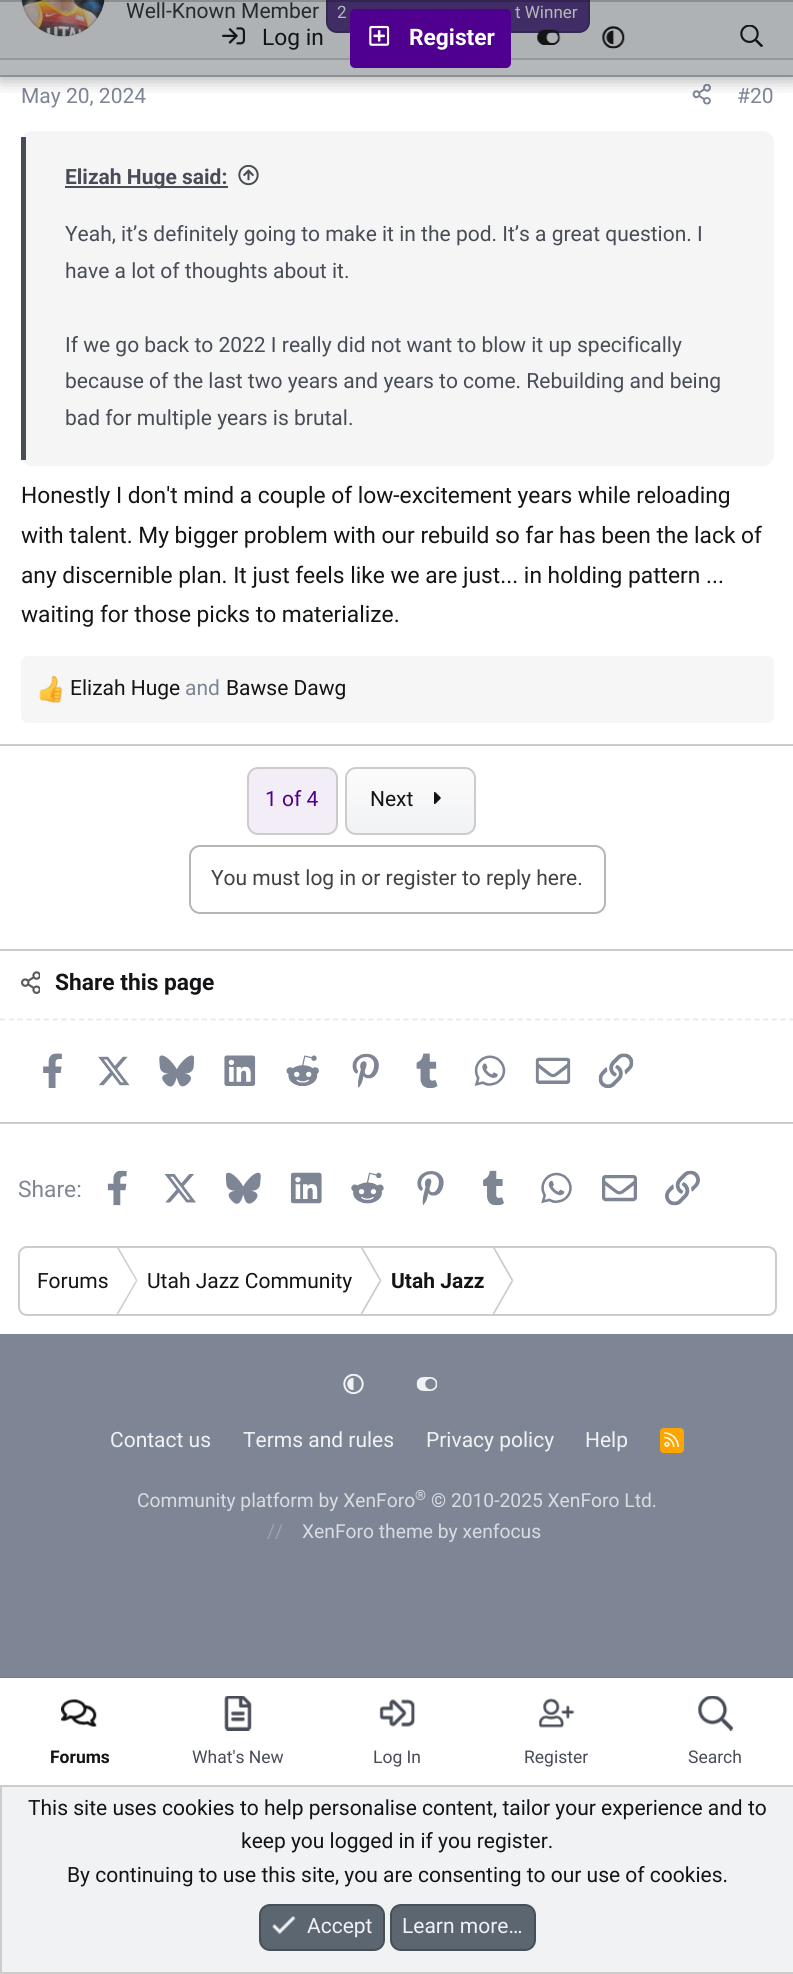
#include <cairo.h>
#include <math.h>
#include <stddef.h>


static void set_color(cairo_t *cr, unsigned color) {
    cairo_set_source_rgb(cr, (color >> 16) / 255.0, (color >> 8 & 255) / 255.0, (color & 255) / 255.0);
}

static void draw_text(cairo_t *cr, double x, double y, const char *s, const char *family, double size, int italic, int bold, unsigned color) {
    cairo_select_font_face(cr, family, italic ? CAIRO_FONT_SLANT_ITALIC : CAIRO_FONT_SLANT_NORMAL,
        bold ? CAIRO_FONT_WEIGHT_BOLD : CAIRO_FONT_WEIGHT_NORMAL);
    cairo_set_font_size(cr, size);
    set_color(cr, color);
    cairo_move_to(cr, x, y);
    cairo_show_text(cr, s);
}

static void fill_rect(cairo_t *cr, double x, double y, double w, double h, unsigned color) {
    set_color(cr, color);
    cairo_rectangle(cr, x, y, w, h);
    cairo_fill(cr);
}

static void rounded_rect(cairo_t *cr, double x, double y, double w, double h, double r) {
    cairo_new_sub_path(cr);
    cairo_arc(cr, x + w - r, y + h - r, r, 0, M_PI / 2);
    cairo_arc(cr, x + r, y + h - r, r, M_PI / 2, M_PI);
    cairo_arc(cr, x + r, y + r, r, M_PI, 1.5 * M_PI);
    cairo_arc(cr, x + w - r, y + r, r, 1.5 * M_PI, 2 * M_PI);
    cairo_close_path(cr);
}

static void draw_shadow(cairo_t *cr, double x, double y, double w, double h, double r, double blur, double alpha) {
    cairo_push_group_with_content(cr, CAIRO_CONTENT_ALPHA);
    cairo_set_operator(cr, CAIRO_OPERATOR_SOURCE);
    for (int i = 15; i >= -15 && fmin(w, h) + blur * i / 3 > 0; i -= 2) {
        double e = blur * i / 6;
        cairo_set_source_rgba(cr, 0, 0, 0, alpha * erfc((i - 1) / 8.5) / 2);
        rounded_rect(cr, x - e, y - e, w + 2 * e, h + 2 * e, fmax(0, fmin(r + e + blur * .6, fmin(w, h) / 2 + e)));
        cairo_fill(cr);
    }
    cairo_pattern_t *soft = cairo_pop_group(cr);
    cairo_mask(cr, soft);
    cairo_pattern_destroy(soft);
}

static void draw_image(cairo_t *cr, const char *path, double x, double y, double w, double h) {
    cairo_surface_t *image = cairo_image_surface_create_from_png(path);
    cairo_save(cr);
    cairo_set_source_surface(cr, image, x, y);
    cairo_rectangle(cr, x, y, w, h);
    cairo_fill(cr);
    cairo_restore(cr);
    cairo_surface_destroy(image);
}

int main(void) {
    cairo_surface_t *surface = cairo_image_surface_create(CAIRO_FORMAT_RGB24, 793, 1974);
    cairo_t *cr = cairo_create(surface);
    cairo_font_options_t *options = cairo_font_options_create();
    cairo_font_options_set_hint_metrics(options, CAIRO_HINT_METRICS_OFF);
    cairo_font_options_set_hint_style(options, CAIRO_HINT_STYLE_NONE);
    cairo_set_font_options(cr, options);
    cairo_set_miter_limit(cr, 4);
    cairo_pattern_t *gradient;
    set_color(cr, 0xFFFFFF);
    cairo_paint(cr);
    fill_rect(cr, 0, 60, 793, 15, 0xB5B8BB);
    fill_rect(cr, 0, 744, 793, 2, 0xCCCCCC);
    fill_rect(cr, 0, 0, 793, 58, 0xAFB2B5);
    fill_rect(cr, 0, 58, 793, 2, 0x96999C);
    set_color(cr, 0xB5B8BB);
    rounded_rect(cr, 21, -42, 84, 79, 42);
    cairo_fill(cr);
    draw_image(cr, "assets/img1.png", 21, 0, 84, 37);
    rounded_rect(cr, 22, -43, 82, 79, 41);
    cairo_set_source_rgba(cr, 0.149, 0.169, 0.184, 0.15);
    cairo_stroke(cr);
    draw_text(cr, 126, 18, "Well-Known Member", "Roboto", 21, 0, 0, 0x262B2F);
    set_color(cr, 0x402D66);
    rounded_rect(cr, 327, -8, 262, 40, 10);
    cairo_fill_preserve(cr);
    set_color(cr, 0x33284D);
    cairo_stroke(cr);
    draw_text(cr, 337, 18, "2", "Roboto", 17, 0, 0, 0xB5B8BB);
    draw_text(cr, 515, 18, "t Winner", "Roboto", 17, 0, 0, 0xB5B8BB);
    draw_text(cr, 21, 103, "May 20, 2024", "Roboto", 21, 0, 0, 0x7E8595);
    draw_image(cr, "assets/img2.png", 692, 84, 19, 21);
    draw_text(cr, 737, 103, "#20", "Roboto", 21, 0, 0, 0x7E8595);
    set_color(cr, 0xF5F5F5);
    rounded_rect(cr, 21, 131, 753, 335, 11);
    cairo_fill(cr);
    fill_rect(cr, 21, 137, 5, 323, 0x474C57);
    fill_rect(cr, 65, 186, 163, 2, 0x474C57);
    draw_text(cr, 65, 184, "Elizah Huge said:", "Roboto", 21, 0, 1, 0x474C57);
    draw_image(cr, "assets/img3.png", 238, 165, 21, 21);
    draw_text(cr, 65, 241, "Yeah, it’s definitely going to make it in the pod. It’s a great question. I", "Roboto", 21, 0, 0, 0x474C57);
    draw_text(cr, 65, 278, "have a lot of thoughts about it.", "Roboto", 21, 0, 0, 0x474C57);
    draw_text(cr, 65, 352, "If we go back to 2022 I really did not want to blow it up specifically", "Roboto", 21, 0, 0, 0x474C57);
    draw_text(cr, 65, 388, "because of the last two years and years to come. Rebuilding and being", "Roboto", 21, 0, 0, 0x474C57);
    draw_text(cr, 65, 425, "bad for multiple years is brutal.", "Roboto", 21, 0, 0, 0x474C57);
    draw_text(cr, 21, 503, "Honestly I don't mind a couple of low-excitement years while reloading", "Roboto", 22.75, 0, 0, 0x121416);
    draw_text(cr, 21, 543, "with talent. My bigger problem with our rebuild so far has been the lack of", "Roboto", 22.75, 0, 0, 0x121416);
    draw_text(cr, 21, 583, "any discernible plan. It just feels like we are just... in holding pattern ...", "Roboto", 22.75, 0, 0, 0x121416);
    draw_text(cr, 21, 622, "waiting for those picks to materialize.", "Roboto", 22.75, 0, 0, 0x121416);
    set_color(cr, 0xF6F6F6);
    rounded_rect(cr, 21, 656, 753, 67, 7);
    cairo_fill(cr);
    draw_image(cr, "assets/img4.png", 39, 676, 24, 27);
    draw_text(cr, 70, 695, "Elizah Huge", "Roboto", 21, 0, 0, 0x121416);
    draw_text(cr, 185, 695, "and", "Roboto", 21, 0, 0, 0x7E8595);
    draw_text(cr, 226, 695, "Bawse Dawg", "Roboto", 21, 0, 0, 0x121416);
    set_color(cr, 0xF3EDF7);
    rounded_rect(cr, 248, 768, 89, 66, 10);
    cairo_fill_preserve(cr);
    set_color(cr, 0xCCCCCC);
    cairo_stroke(cr);
    draw_text(cr, 265, 806, "1 of 4", "Roboto", 21, 0, 0, 0x4F008F);
    cairo_save(cr);
    rounded_rect(cr, 345, 767, 131, 68, 11);
    cairo_clip(cr);
    gradient = cairo_pattern_create_linear(410, 833, 410, 768);
    cairo_pattern_add_color_stop_rgba(gradient, 0, 0.945, 0.949, 0.957, 1);
    cairo_pattern_add_color_stop_rgba(gradient, 1, 0.988, 0.988, 0.988, 1);
    cairo_set_source(cr, gradient);
    cairo_pattern_destroy(gradient);
    cairo_rectangle(cr, 345, 768, 131, 65);
    cairo_fill(cr);
    cairo_restore(cr);
    rounded_rect(cr, 346, 768, 129, 66, 10);
    set_color(cr, 0xCCCCCC);
    cairo_stroke(cr);
    draw_text(cr, 370, 806, "Next", "Roboto", 21, 0, 0, 0x121416);
    draw_image(cr, "assets/img5.png", 434, 792, 7, 12);
    rounded_rect(cr, 190, 846, 415, 67, 10);
    set_color(cr, 0xB5B5B5);
    cairo_stroke(cr);
    draw_text(cr, 211, 885, "You must log in or register to reply here.", "Roboto", 21, 0, 0, 0x424242);
    fill_rect(cr, 0, 949, 793, 2, 0xCCCCCC);
    fill_rect(cr, 0, 1122, 793, 2, 0xCCCCCC);
    cairo_new_path(cr);
    cairo_move_to(cr, 0, 1019.5);
    cairo_line_to(cr, 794.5, 1019.5);
    set_color(cr, 0xE7E8E8);
    cairo_set_line_width(cr, 1.8);
    cairo_set_dash(cr, (double[]){5.25, 3.52}, 2, 0);
    cairo_stroke(cr);
    draw_image(cr, "assets/img6.png", 21, 971, 19, 23);
    draw_text(cr, 55, 990, "Share this page", "Roboto", 22.75, 0, 1, 0x121416);
    draw_image(cr, "assets/img7.png", 43, 1053, 19, 35);
    draw_image(cr, "assets/img8.png", 98, 1056, 32, 30);
    draw_image(cr, "assets/img9.png", 159, 1055, 35, 32);
    draw_image(cr, "assets/img10.png", 224, 1055, 32, 31);
    draw_image(cr, "assets/img11.png", 286, 1055, 33, 31);
    draw_image(cr, "assets/img12.png", 352, 1053, 27, 35);
    draw_image(cr, "assets/img13.png", 416, 1053, 22, 35);
    draw_image(cr, "assets/img14.png", 474, 1055, 32, 31);
    draw_image(cr, "assets/img15.png", 535, 1057, 36, 27);
    draw_image(cr, "assets/img16.png", 598, 1053, 36, 35);
    draw_text(cr, 18, 1197, "Share:", "Roboto", 22.75, 0, 0, 0x7E8595);
    draw_image(cr, "assets/img17.png", 107, 1170, 20, 36);
    draw_image(cr, "assets/img18.png", 164, 1174, 32, 29);
    draw_image(cr, "assets/img19.png", 226, 1172, 35, 32);
    draw_image(cr, "assets/img20.png", 290, 1172, 32, 32);
    draw_image(cr, "assets/img21.png", 351, 1172, 33, 32);
    draw_image(cr, "assets/img22.png", 417, 1171, 27, 34);
    draw_image(cr, "assets/img23.png", 483, 1170, 21, 36);
    draw_image(cr, "assets/img24.png", 541, 1172, 31, 32);
    draw_image(cr, "assets/img25.png", 602, 1175, 35, 27);
    draw_image(cr, "assets/img26.png", 665, 1170, 35, 36);
    cairo_save(cr);
    cairo_rectangle(cr, 18, 1246, 759, 70);
    cairo_clip(cr);
    set_color(cr, 0xCCCCCC);
    cairo_new_path(cr);
    cairo_move_to(cr, 115.5, 1245.5);
    cairo_line_to(cr, 117.5, 1245.5);
    cairo_line_to(cr, 137.5, 1280.5);
    cairo_line_to(cr, 136, 1280.5);
    cairo_close_path(cr);
    cairo_fill(cr);
    cairo_restore(cr);
    set_color(cr, 0xCCCCCC);
    cairo_new_path(cr);
    cairo_move_to(cr, 136, 1280.5);
    cairo_line_to(cr, 137.5, 1280.5);
    cairo_line_to(cr, 117.5, 1315.5);
    cairo_line_to(cr, 115.5, 1315.5);
    cairo_close_path(cr);
    cairo_fill(cr);
    cairo_save(cr);
    cairo_rectangle(cr, 18, 1246, 759, 70);
    cairo_clip(cr);
    cairo_new_path(cr);
    cairo_move_to(cr, 359.5, 1245.5);
    cairo_line_to(cr, 361.5, 1245.5);
    cairo_line_to(cr, 381.5, 1280.5);
    cairo_line_to(cr, 379.5, 1280.5);
    cairo_close_path(cr);
    cairo_fill(cr);
    cairo_restore(cr);
    set_color(cr, 0xFFFFFF);
    cairo_new_path(cr);
    cairo_move_to(cr, 378, 1280.5);
    cairo_line_to(cr, 379.5, 1280.5);
    cairo_line_to(cr, 359.5, 1315.5);
    cairo_line_to(cr, 358, 1315.5);
    cairo_close_path(cr);
    cairo_fill(cr);
    set_color(cr, 0xCCCCCC);
    cairo_new_path(cr);
    cairo_move_to(cr, 379.5, 1280.5);
    cairo_line_to(cr, 381.5, 1280.5);
    cairo_line_to(cr, 361.5, 1315.5);
    cairo_line_to(cr, 359.5, 1315.5);
    cairo_close_path(cr);
    cairo_fill(cr);
    cairo_save(cr);
    cairo_rectangle(cr, 18, 1246, 759, 70);
    cairo_clip(cr);
    cairo_new_path(cr);
    cairo_move_to(cr, 491.5, 1245.5);
    cairo_line_to(cr, 493.5, 1245.5);
    cairo_line_to(cr, 513.5, 1280.5);
    cairo_line_to(cr, 511.5, 1280.5);
    cairo_close_path(cr);
    cairo_fill(cr);
    cairo_restore(cr);
    set_color(cr, 0xFFFFFF);
    cairo_new_path(cr);
    cairo_move_to(cr, 510, 1280.5);
    cairo_line_to(cr, 511.5, 1280.5);
    cairo_line_to(cr, 491.5, 1315.5);
    cairo_line_to(cr, 490, 1315.5);
    cairo_close_path(cr);
    cairo_fill(cr);
    set_color(cr, 0xCCCCCC);
    cairo_new_path(cr);
    cairo_move_to(cr, 511.5, 1280.5);
    cairo_line_to(cr, 513.5, 1280.5);
    cairo_line_to(cr, 493.5, 1315.5);
    cairo_line_to(cr, 491.5, 1315.5);
    cairo_close_path(cr);
    cairo_fill(cr);
    rounded_rect(cr, 19, 1247, 757, 68, 8);
    cairo_set_line_width(cr, 2);
    cairo_set_dash(cr, NULL, 0, 0);
    cairo_stroke(cr);
    draw_text(cr, 37, 1288, "Forums", "Roboto", 21, 0, 0, 0x121416);
    draw_text(cr, 147, 1288, "Utah Jazz Community", "Roboto", 21, 0, 0, 0x121416);
    draw_text(cr, 391, 1288, "Utah Jazz", "Roboto", 21, 0, 1, 0x121416);
    fill_rect(cr, 0, 1334, 793, 343, 0x7E8595);
    draw_image(cr, "assets/img27.png", 343, 1373, 21, 22);
    draw_image(cr, "assets/img28.png", 416, 1377, 22, 14);
    draw_text(cr, 110, 1447, "Contact us", "Roboto", 21, 0, 0, 0xF1F2F4);
    draw_text(cr, 243, 1447, "Terms and rules", "Roboto", 21, 0, 0, 0xF1F2F4);
    draw_text(cr, 426, 1447, "Privacy policy", "Roboto", 21, 0, 0, 0xF1F2F4);
    draw_text(cr, 585, 1447, "Help", "Roboto", 21, 0, 0, 0xF1F2F4);
    set_color(cr, 0xFFA500);
    rounded_rect(cr, 660, 1428, 24, 25, 4);
    cairo_fill(cr);
    draw_image(cr, "assets/img29.png", 664, 1432, 15, 15);
    draw_text(cr, 137, 1507, "Community platform by XenForo", "Roboto", 19.25, 0, 0, 0xDADCE1);
    draw_text(cr, 415, 1500, "®", "Roboto", 14, 0, 0, 0xDADCE1);
    draw_text(cr, 431, 1507, "© 2010-2025 XenForo Ltd.", "Roboto", 19.25, 0, 0, 0xDADCE1);
    draw_text(cr, 267, 1538, "//", "Roboto", 19.25, 0, 0, 0x9EA3AF);
    draw_text(cr, 302, 1538, "XenForo theme by xenfocus", "Roboto", 19.25, 0, 0, 0xDADCE1);
    cairo_save(cr);
    cairo_rectangle(cr, 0, 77, 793, 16);
    cairo_clip(cr);
    set_color(cr, 0x000000);
    draw_shadow(cr, 0, -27, 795, 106, 0, 9, 0.35);
    cairo_restore(cr);
    cairo_set_source_rgba(cr, 0, 0, 0, 0.2);
    cairo_rectangle(cr, 0, 0, 793, 2);
    cairo_fill(cr);
    fill_rect(cr, 0, 75, 793, 2, 0x909395);
    draw_image(cr, "assets/img30.png", 222, 27, 23, 18);
    draw_text(cr, 262, 45, "Log in", "Roboto", 22.75, 0, 0, 0x121416);
    set_color(cr, 0x4F008F);
    rounded_rect(cr, 350, 9, 161, 59, 5);
    cairo_fill(cr);
    draw_image(cr, "assets/img31.png", 369, 25, 21, 21);
    draw_text(cr, 409, 45, "Register", "Roboto", 22.75, 0, 1, 0xFFFFFF);
    draw_image(cr, "assets/img32.png", 537, 29, 24, 16);
    draw_image(cr, "assets/img33.png", 602, 26, 23, 23);
    draw_image(cr, "assets/img34.png", 740, 25, 23, 22);
    set_color(cr, 0x717886);
    cairo_new_path(cr);
    cairo_move_to(cr, 0, 1677);
    cairo_line_to(cr, 0, 1678);
    cairo_line_to(cr, 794, 1678);
    cairo_line_to(cr, 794, 1783);
    cairo_line_to(cr, 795, 1783);
    cairo_line_to(cr, 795, 1677);
    cairo_close_path(cr);
    cairo_fill(cr);
    draw_image(cr, "assets/img35.png", 61, 1699, 36, 28);
    draw_text(cr, 50, 1763, "Forums", "Roboto", 17.5, 0, 1, 0x121416);
    draw_image(cr, "assets/img36.png", 224, 1696, 28, 35);
    draw_text(cr, 192, 1763, "What's New", "Roboto", 17.5, 0, 0, 0x474C57);
    draw_image(cr, "assets/img37.png", 379, 1699, 37, 28);
    draw_text(cr, 373, 1763, "Log In", "Roboto", 17.5, 0, 0, 0x474C57);
    draw_image(cr, "assets/img38.png", 539, 1698, 36, 30);
    draw_text(cr, 524, 1763, "Register", "Roboto", 17.5, 0, 0, 0x474C57);
    draw_image(cr, "assets/img39.png", 698, 1696, 35, 35);
    draw_text(cr, 688, 1763, "Search", "Roboto", 17.5, 0, 0, 0x474C57);
    set_color(cr, 0xF1F2F4);
    cairo_rectangle(cr, 1, 1786, 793, 187);
    cairo_fill_preserve(cr);
    set_color(cr, 0xCCCCCC);
    cairo_stroke(cr);
    draw_text(cr, 28, 1815, "This site uses cookies to help personalise content, tailor your experience and to", "Roboto", 21, 0, 0, 0x121416);
    draw_text(cr, 241, 1848, "keep you logged in if you register.", "Roboto", 21, 0, 0, 0x121416);
    draw_text(cr, 67, 1882, "By continuing to use this site, you are consenting to our use of cookies.", "Roboto", 21, 0, 0, 0x121416);
    set_color(cr, 0x5C6670);
    rounded_rect(cr, 260, 1905, 124, 45, 10);
    cairo_fill_preserve(cr);
    set_color(cr, 0x474F57);
    cairo_stroke(cr);
    draw_image(cr, "assets/img40.png", 272, 1916, 24, 19);
    draw_text(cr, 307, 1933, "Accept", "Roboto", 21, 0, 0, 0xF1F2F4);
    set_color(cr, 0x5C6670);
    rounded_rect(cr, 391, 1905, 144, 45, 10);
    cairo_fill_preserve(cr);
    set_color(cr, 0x474F57);
    cairo_stroke(cr);
    draw_text(cr, 402, 1933, "Learn more…", "Roboto", 21, 0, 0, 0xF1F2F4);
    cairo_surface_write_to_png(surface, "output.png");
    cairo_font_options_destroy(options);
    cairo_destroy(cr);
    cairo_surface_destroy(surface);
    return 0;
}
